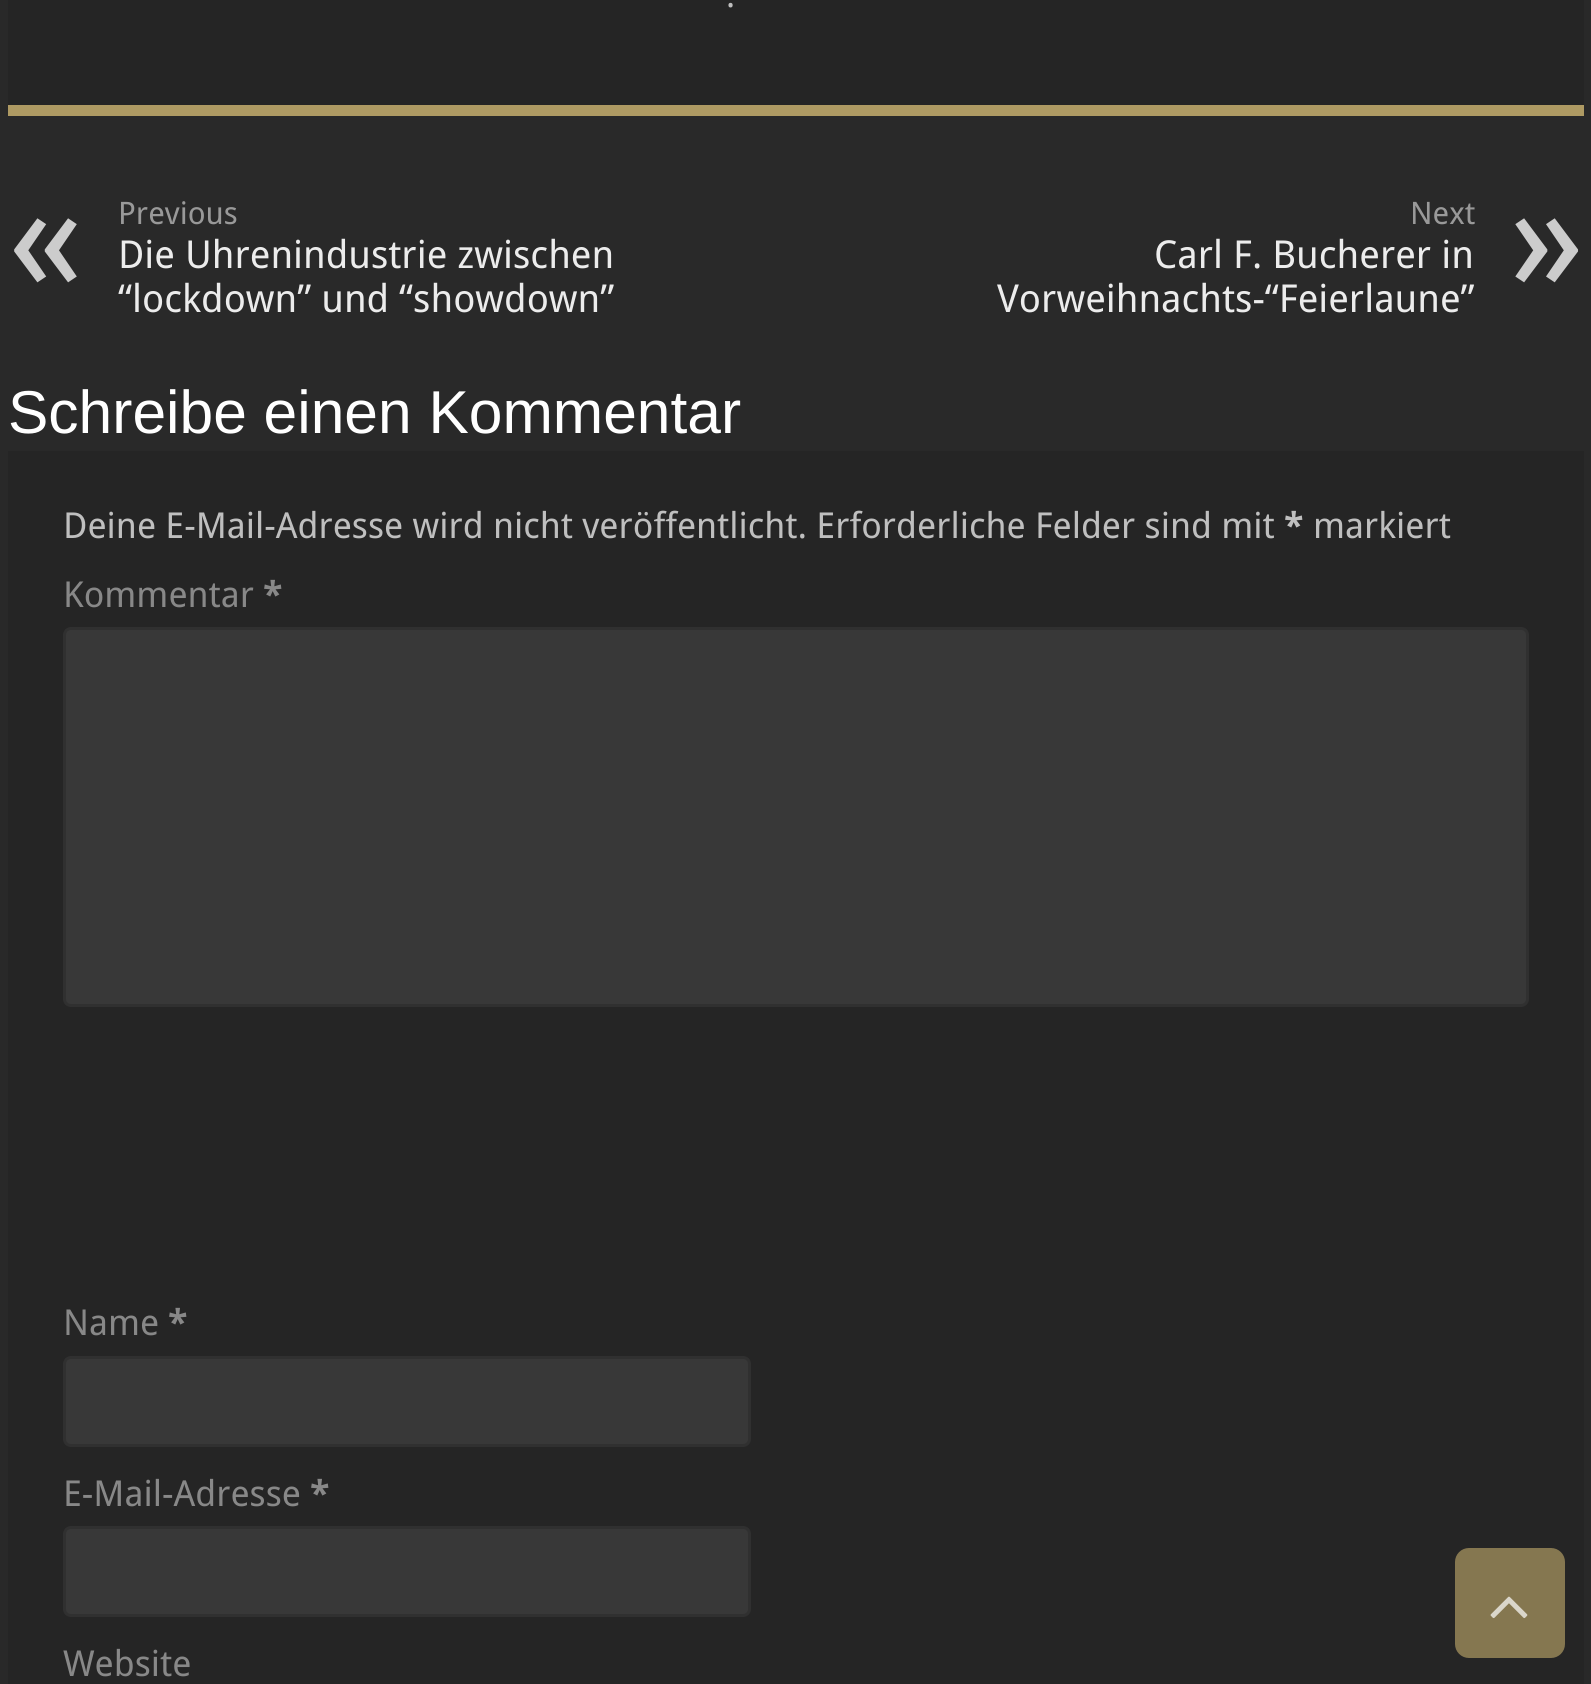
#include <cairo.h>
#include <math.h>
#include <stddef.h>


static void set_color(cairo_t *cr, unsigned color) {
    cairo_set_source_rgb(cr, (color >> 16) / 255.0, (color >> 8 & 255) / 255.0, (color & 255) / 255.0);
}

static void draw_text(cairo_t *cr, double x, double y, const char *s, const char *family, double size, int italic, int bold, unsigned color) {
    cairo_select_font_face(cr, family, italic ? CAIRO_FONT_SLANT_ITALIC : CAIRO_FONT_SLANT_NORMAL,
        bold ? CAIRO_FONT_WEIGHT_BOLD : CAIRO_FONT_WEIGHT_NORMAL);
    cairo_set_font_size(cr, size);
    set_color(cr, color);
    cairo_move_to(cr, x, y);
    cairo_show_text(cr, s);
}

static void fill_rect(cairo_t *cr, double x, double y, double w, double h, unsigned color) {
    set_color(cr, color);
    cairo_rectangle(cr, x, y, w, h);
    cairo_fill(cr);
}

static void rounded_rect(cairo_t *cr, double x, double y, double w, double h, double r) {
    cairo_new_sub_path(cr);
    cairo_arc(cr, x + w - r, y + h - r, r, 0, M_PI / 2);
    cairo_arc(cr, x + r, y + h - r, r, M_PI / 2, M_PI);
    cairo_arc(cr, x + r, y + r, r, M_PI, 1.5 * M_PI);
    cairo_arc(cr, x + w - r, y + r, r, 1.5 * M_PI, 2 * M_PI);
    cairo_close_path(cr);
}

static void draw_image(cairo_t *cr, const char *path, double x, double y, double w, double h) {
    cairo_surface_t *image = cairo_image_surface_create_from_png(path);
    cairo_save(cr);
    cairo_set_source_surface(cr, image, x, y);
    cairo_rectangle(cr, x, y, w, h);
    cairo_fill(cr);
    cairo_restore(cr);
    cairo_surface_destroy(image);
}

int main(void) {
    cairo_surface_t *surface = cairo_image_surface_create(CAIRO_FORMAT_RGB24, 1591, 1684);
    cairo_t *cr = cairo_create(surface);
    cairo_font_options_t *options = cairo_font_options_create();
    cairo_font_options_set_hint_metrics(options, CAIRO_HINT_METRICS_OFF);
    cairo_font_options_set_hint_style(options, CAIRO_HINT_STYLE_NONE);
    cairo_set_font_options(cr, options);
    cairo_set_miter_limit(cr, 4);
    set_color(cr, 0x292929);
    cairo_paint(cr);
    fill_rect(cr, 8, 0, 1576, 105, 0x252525);
    fill_rect(cr, 8, 105, 1576, 11, 0xAE9A63);
    draw_text(cr, 726, 7, ".", "Droid Sans", 34, 0, 0, 0xBFBFBF);
    draw_text(cr, 118, 224, "Previous", "Droid Sans", 31, 0, 0, 0x999999);
    draw_text(cr, 8, 291, "«", "Droid Sans", 154, 0, 0, 0xCCCCCC);
    draw_text(cr, 118, 268, "Die Uhrenindustrie zwischen", "Droid Sans", 38.5, 0, 0, 0xECECEC);
    draw_text(cr, 118, 312, "“lockdown” und “showdown”", "Droid Sans", 38.5, 0, 0, 0xECECEC);
    draw_text(cr, 1410, 224, "Next", "Droid Sans", 31, 0, 0, 0x999999);
    draw_text(cr, 1154, 268, "Carl F. Bucherer in", "Droid Sans", 38.5, 0, 0, 0xECECEC);
    draw_text(cr, 1509, 291, "»", "Droid Sans", 154, 0, 0, 0xCCCCCC);
    draw_text(cr, 997, 312, "Vorweihnachts-“Feierlaune”", "Droid Sans", 38.5, 0, 0, 0xECECEC);
    draw_text(cr, 8, 433, "Schreibe einen Kommentar", "Liberation Sans", 60.5, 0, 0, 0xFFFFFF);
    fill_rect(cr, 8, 451, 1576, 1233, 0x252525);
    draw_text(cr, 63, 538, "Deine E-Mail-Adresse wird nicht veröffentlicht. Erforderliche Felder sind mit", "Droid Sans", 35.75, 0, 0, 0xBFBFBF);
    draw_text(cr, 1284, 538, "*", "Droid Sans", 35.75, 0, 1, 0xBFBFBF);
    draw_text(cr, 1313, 538, "markiert", "Droid Sans", 35.75, 0, 0, 0xBFBFBF);
    draw_text(cr, 63, 607, "Kommentar", "Droid Sans", 35.75, 0, 0, 0x888888);
    draw_text(cr, 263, 607, "*", "Droid Sans", 35.75, 0, 1, 0x888888);
    set_color(cr, 0x383838);
    rounded_rect(cr, 64.5, 628.5, 1463, 377, 6.5);
    cairo_fill_preserve(cr);
    set_color(cr, 0x303030);
    cairo_set_line_width(cr, 3);
    cairo_stroke(cr);
    draw_text(cr, 63, 1335, "Name", "Droid Sans", 35.75, 0, 0, 0x888888);
    draw_text(cr, 168, 1335, "*", "Droid Sans", 35.75, 0, 1, 0x888888);
    set_color(cr, 0x383838);
    rounded_rect(cr, 64.5, 1357.5, 685, 88, 6.5);
    cairo_fill_preserve(cr);
    set_color(cr, 0x303030);
    cairo_stroke(cr);
    draw_text(cr, 63, 1506, "E-Mail-Adresse", "Droid Sans", 35.75, 0, 0, 0x888888);
    draw_text(cr, 310, 1506, "*", "Droid Sans", 35.75, 0, 1, 0x888888);
    set_color(cr, 0x383838);
    rounded_rect(cr, 64.5, 1527.5, 685, 88, 6.5);
    cairo_fill_preserve(cr);
    set_color(cr, 0x303030);
    cairo_stroke(cr);
    draw_text(cr, 63, 1676, "Website", "Droid Sans", 35.75, 0, 0, 0x888888);
    set_color(cr, 0x857750);
    rounded_rect(cr, 1455, 1548, 110, 110, 14);
    cairo_fill(cr);
    draw_image(cr, "assets/img1.png", 1490, 1596, 38, 23);
    cairo_surface_write_to_png(surface, "output.png");
    cairo_font_options_destroy(options);
    cairo_destroy(cr);
    cairo_surface_destroy(surface);
    return 0;
}
